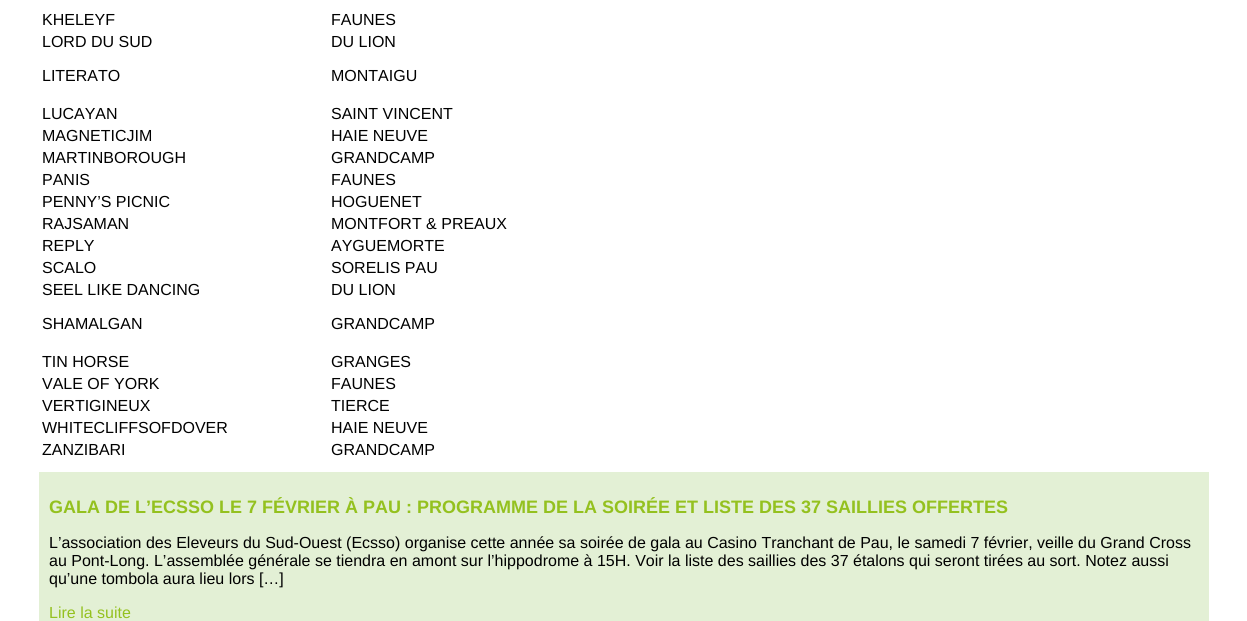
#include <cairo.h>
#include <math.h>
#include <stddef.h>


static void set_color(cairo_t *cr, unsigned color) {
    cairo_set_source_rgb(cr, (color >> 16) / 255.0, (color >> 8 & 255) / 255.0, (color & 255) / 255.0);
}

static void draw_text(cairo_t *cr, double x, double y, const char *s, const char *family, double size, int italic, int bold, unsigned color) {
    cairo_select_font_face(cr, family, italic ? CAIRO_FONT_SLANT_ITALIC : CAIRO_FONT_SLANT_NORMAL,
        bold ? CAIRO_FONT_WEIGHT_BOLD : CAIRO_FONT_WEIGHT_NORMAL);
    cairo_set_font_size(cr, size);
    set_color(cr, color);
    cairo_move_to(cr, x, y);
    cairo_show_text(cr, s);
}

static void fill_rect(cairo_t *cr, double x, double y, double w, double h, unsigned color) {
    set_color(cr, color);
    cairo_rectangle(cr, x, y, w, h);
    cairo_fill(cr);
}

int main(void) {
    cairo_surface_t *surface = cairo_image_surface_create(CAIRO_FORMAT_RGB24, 1247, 621);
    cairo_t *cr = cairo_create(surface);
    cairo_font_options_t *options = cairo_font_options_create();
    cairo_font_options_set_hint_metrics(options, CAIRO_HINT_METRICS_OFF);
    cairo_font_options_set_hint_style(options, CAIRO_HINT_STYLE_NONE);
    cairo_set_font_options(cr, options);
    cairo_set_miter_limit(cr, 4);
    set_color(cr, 0xFFFFFF);
    cairo_paint(cr);
    draw_text(cr, 42, 25, "KHELEYF", "Liberation Sans", 16, 0, 0, 0x000000);
    draw_text(cr, 331, 25, "FAUNES", "Liberation Sans", 16, 0, 0, 0x000000);
    draw_text(cr, 42, 47, "LORD DU SUD", "Liberation Sans", 16, 0, 0, 0x000000);
    draw_text(cr, 42, 81, "LITERATO", "Liberation Sans", 16, 0, 0, 0x000000);
    draw_text(cr, 331, 47, "DU LION", "Liberation Sans", 16, 0, 0, 0x000000);
    draw_text(cr, 331, 81, "MONTAIGU", "Liberation Sans", 16, 0, 0, 0x000000);
    draw_text(cr, 42, 119, "LUCAYAN", "Liberation Sans", 16, 0, 0, 0x000000);
    draw_text(cr, 331, 119, "SAINT VINCENT", "Liberation Sans", 16, 0, 0, 0x000000);
    draw_text(cr, 42, 141, "MAGNETICJIM", "Liberation Sans", 16, 0, 0, 0x000000);
    draw_text(cr, 331, 141, "HAIE NEUVE", "Liberation Sans", 16, 0, 0, 0x000000);
    draw_text(cr, 42, 163, "MARTINBOROUGH", "Liberation Sans", 16, 0, 0, 0x000000);
    draw_text(cr, 331, 163, "GRANDCAMP", "Liberation Sans", 16, 0, 0, 0x000000);
    draw_text(cr, 42, 185, "PANIS", "Liberation Sans", 16, 0, 0, 0x000000);
    draw_text(cr, 331, 185, "FAUNES", "Liberation Sans", 16, 0, 0, 0x000000);
    draw_text(cr, 42, 207, "PENNY’S PICNIC", "Liberation Sans", 16, 0, 0, 0x000000);
    draw_text(cr, 331, 207, "HOGUENET", "Liberation Sans", 16, 0, 0, 0x000000);
    draw_text(cr, 42, 229, "RAJSAMAN", "Liberation Sans", 16, 0, 0, 0x000000);
    draw_text(cr, 331, 229, "MONTFORT & PREAUX", "Liberation Sans", 16, 0, 0, 0x000000);
    draw_text(cr, 42, 251, "REPLY", "Liberation Sans", 16, 0, 0, 0x000000);
    draw_text(cr, 331, 251, "AYGUEMORTE", "Liberation Sans", 16, 0, 0, 0x000000);
    draw_text(cr, 42, 273, "SCALO", "Liberation Sans", 16, 0, 0, 0x000000);
    draw_text(cr, 331, 273, "SORELIS PAU", "Liberation Sans", 16, 0, 0, 0x000000);
    draw_text(cr, 42, 295, "SEEL LIKE DANCING", "Liberation Sans", 16, 0, 0, 0x000000);
    draw_text(cr, 42, 329, "SHAMALGAN", "Liberation Sans", 16, 0, 0, 0x000000);
    draw_text(cr, 331, 295, "DU LION", "Liberation Sans", 16, 0, 0, 0x000000);
    draw_text(cr, 331, 329, "GRANDCAMP", "Liberation Sans", 16, 0, 0, 0x000000);
    draw_text(cr, 42, 367, "TIN HORSE", "Liberation Sans", 16, 0, 0, 0x000000);
    draw_text(cr, 331, 367, "GRANGES", "Liberation Sans", 16, 0, 0, 0x000000);
    draw_text(cr, 42, 389, "VALE OF YORK", "Liberation Sans", 16, 0, 0, 0x000000);
    draw_text(cr, 331, 389, "FAUNES", "Liberation Sans", 16, 0, 0, 0x000000);
    draw_text(cr, 42, 411, "VERTIGINEUX", "Liberation Sans", 16, 0, 0, 0x000000);
    draw_text(cr, 331, 411, "TIERCE", "Liberation Sans", 16, 0, 0, 0x000000);
    draw_text(cr, 42, 433, "WHITECLIFFSOFDOVER", "Liberation Sans", 16, 0, 0, 0x000000);
    draw_text(cr, 331, 433, "HAIE NEUVE", "Liberation Sans", 16, 0, 0, 0x000000);
    draw_text(cr, 42, 455, "ZANZIBARI", "Liberation Sans", 16, 0, 0, 0x000000);
    draw_text(cr, 331, 455, "GRANDCAMP", "Liberation Sans", 16, 0, 0, 0x000000);
    fill_rect(cr, 39, 472, 1170, 149, 0xE3F0D5);
    draw_text(cr, 49, 513, "GALA DE L’ECSSO LE 7 FÉVRIER À PAU : PROGRAMME DE LA SOIRÉE ET LISTE DES 37 SAILLIES OFFERTES", "Liberation Sans", 18, 0, 1, 0x94C11F);
    draw_text(cr, 49, 548, "L’association des Eleveurs du Sud-Ouest (Ecsso) organise cette année sa soirée de gala au Casino Tranchant de Pau, le samedi 7 février, veille du Grand Cross", "Liberation Sans", 16, 0, 0, 0x000000);
    draw_text(cr, 49, 566, "au Pont-Long. L’assemblée générale se tiendra en amont sur l’hippodrome à 15H. Voir la liste des saillies des 37 étalons qui seront tirées au sort. Notez aussi", "Liberation Sans", 16, 0, 0, 0x000000);
    draw_text(cr, 49, 584, "qu’une tombola aura lieu lors […]", "Liberation Sans", 16, 0, 0, 0x000000);
    draw_text(cr, 49, 618, "Lire la suite", "Liberation Sans", 16, 0, 0, 0x94C11F);
    cairo_surface_write_to_png(surface, "output.png");
    cairo_font_options_destroy(options);
    cairo_destroy(cr);
    cairo_surface_destroy(surface);
    return 0;
}
